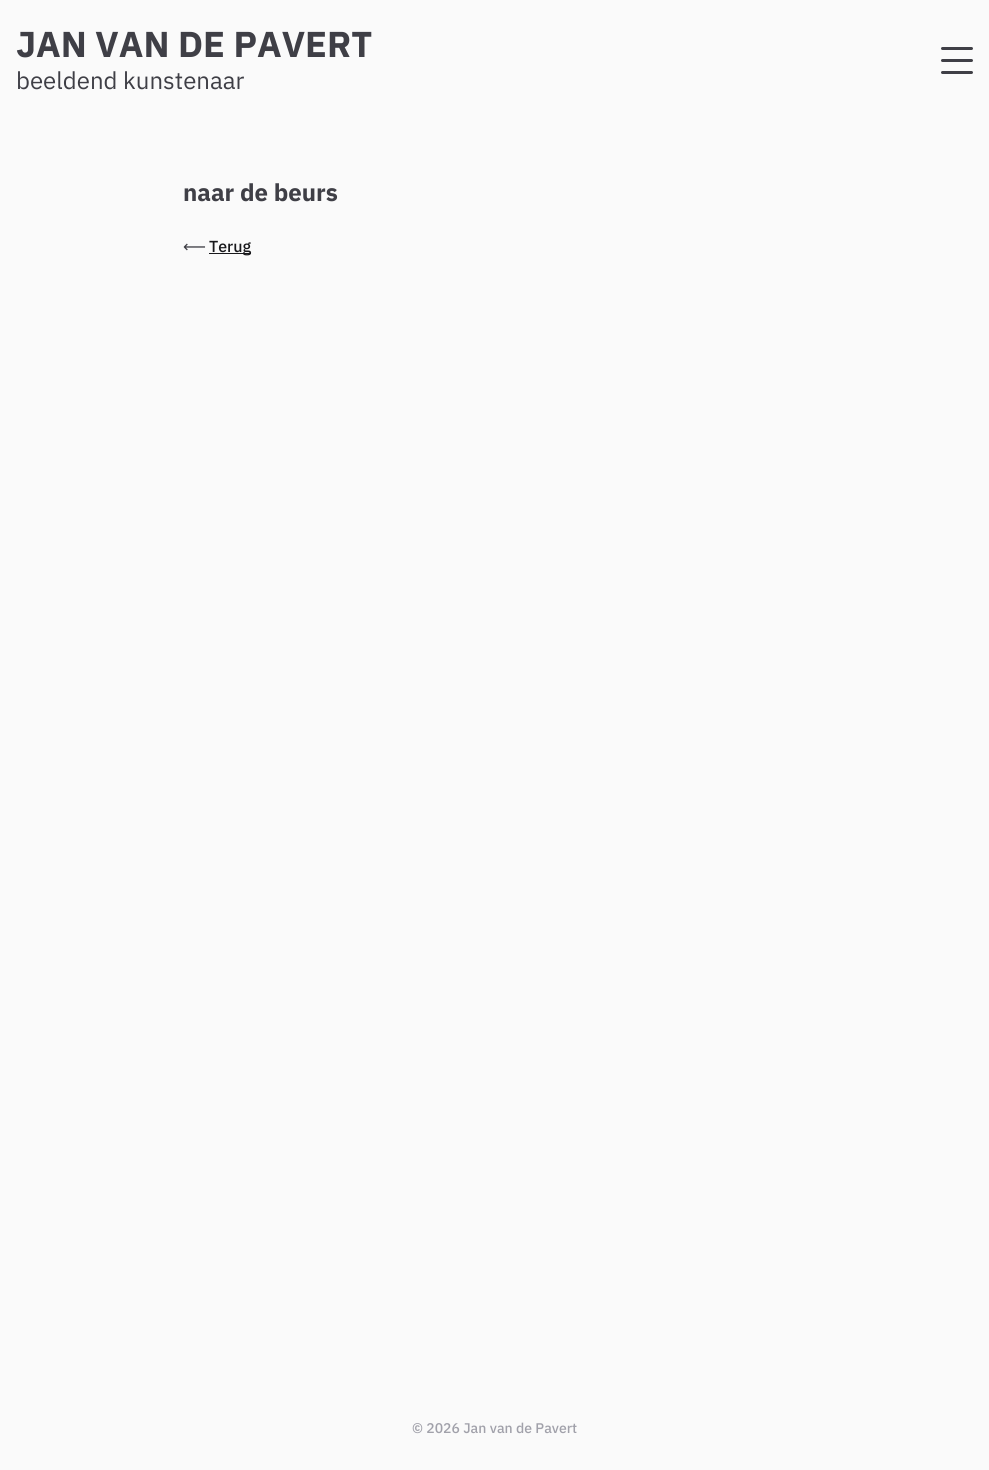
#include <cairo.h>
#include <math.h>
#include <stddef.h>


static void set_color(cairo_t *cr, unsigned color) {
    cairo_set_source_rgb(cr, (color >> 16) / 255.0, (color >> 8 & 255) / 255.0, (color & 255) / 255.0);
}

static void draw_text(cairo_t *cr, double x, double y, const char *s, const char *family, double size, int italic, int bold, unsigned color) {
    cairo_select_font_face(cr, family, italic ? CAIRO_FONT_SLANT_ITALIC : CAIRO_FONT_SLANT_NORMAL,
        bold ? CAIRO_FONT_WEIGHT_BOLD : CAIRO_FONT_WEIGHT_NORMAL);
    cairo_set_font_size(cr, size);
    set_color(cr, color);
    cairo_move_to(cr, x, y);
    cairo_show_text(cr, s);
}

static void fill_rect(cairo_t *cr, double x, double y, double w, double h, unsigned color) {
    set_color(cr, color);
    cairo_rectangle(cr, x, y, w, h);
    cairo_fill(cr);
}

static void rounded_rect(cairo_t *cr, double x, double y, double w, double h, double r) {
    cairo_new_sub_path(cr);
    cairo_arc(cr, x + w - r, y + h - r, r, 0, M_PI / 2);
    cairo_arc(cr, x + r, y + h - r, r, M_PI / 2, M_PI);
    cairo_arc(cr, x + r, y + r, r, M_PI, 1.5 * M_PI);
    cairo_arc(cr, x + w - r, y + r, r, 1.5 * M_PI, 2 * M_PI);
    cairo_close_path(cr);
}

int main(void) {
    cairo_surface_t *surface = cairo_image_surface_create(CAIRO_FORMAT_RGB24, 989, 1470);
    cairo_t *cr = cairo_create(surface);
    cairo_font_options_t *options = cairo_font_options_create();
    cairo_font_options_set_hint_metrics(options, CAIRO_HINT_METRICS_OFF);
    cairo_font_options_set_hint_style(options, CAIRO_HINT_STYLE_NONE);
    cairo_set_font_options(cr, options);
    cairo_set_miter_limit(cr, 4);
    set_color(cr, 0xFAFAFA);
    cairo_paint(cr);
    draw_text(cr, 16, 57, "JAN VAN DE PAVERT", "IBM Plex Sans", 36, 0, 1, 0x3F3F46);
    draw_text(cr, 16, 89, "beeldend kunstenaar", "IBM Plex Sans", 24, 0, 0, 0x3F3F46);
    rounded_rect(cr, 941, 47, 32, 3, 1.5);
    cairo_fill(cr);
    rounded_rect(cr, 941, 59, 32, 3, 1.5);
    cairo_fill(cr);
    rounded_rect(cr, 941, 71, 32, 3, 1.5);
    cairo_fill(cr);
    draw_text(cr, 183, 201, "naar de beurs", "IBM Plex Sans", 24, 0, 1, 0x3F3F46);
    draw_text(cr, 183, 252, "⟵", "DejaVu Sans", 16, 0, 0, 0x3F3F46);
    fill_rect(cr, 209, 253, 42, 1, 0x18181B);
    draw_text(cr, 209, 252, "Terug", "IBM Plex Sans Medium", 16, 0, 0, 0x18181B);
    draw_text(cr, 412, 1433, "© 2026 Jan van de Pavert", "IBM Plex Sans Medium", 14, 0, 0, 0xA1A1AA);
    cairo_surface_write_to_png(surface, "output.png");
    cairo_font_options_destroy(options);
    cairo_destroy(cr);
    cairo_surface_destroy(surface);
    return 0;
}
